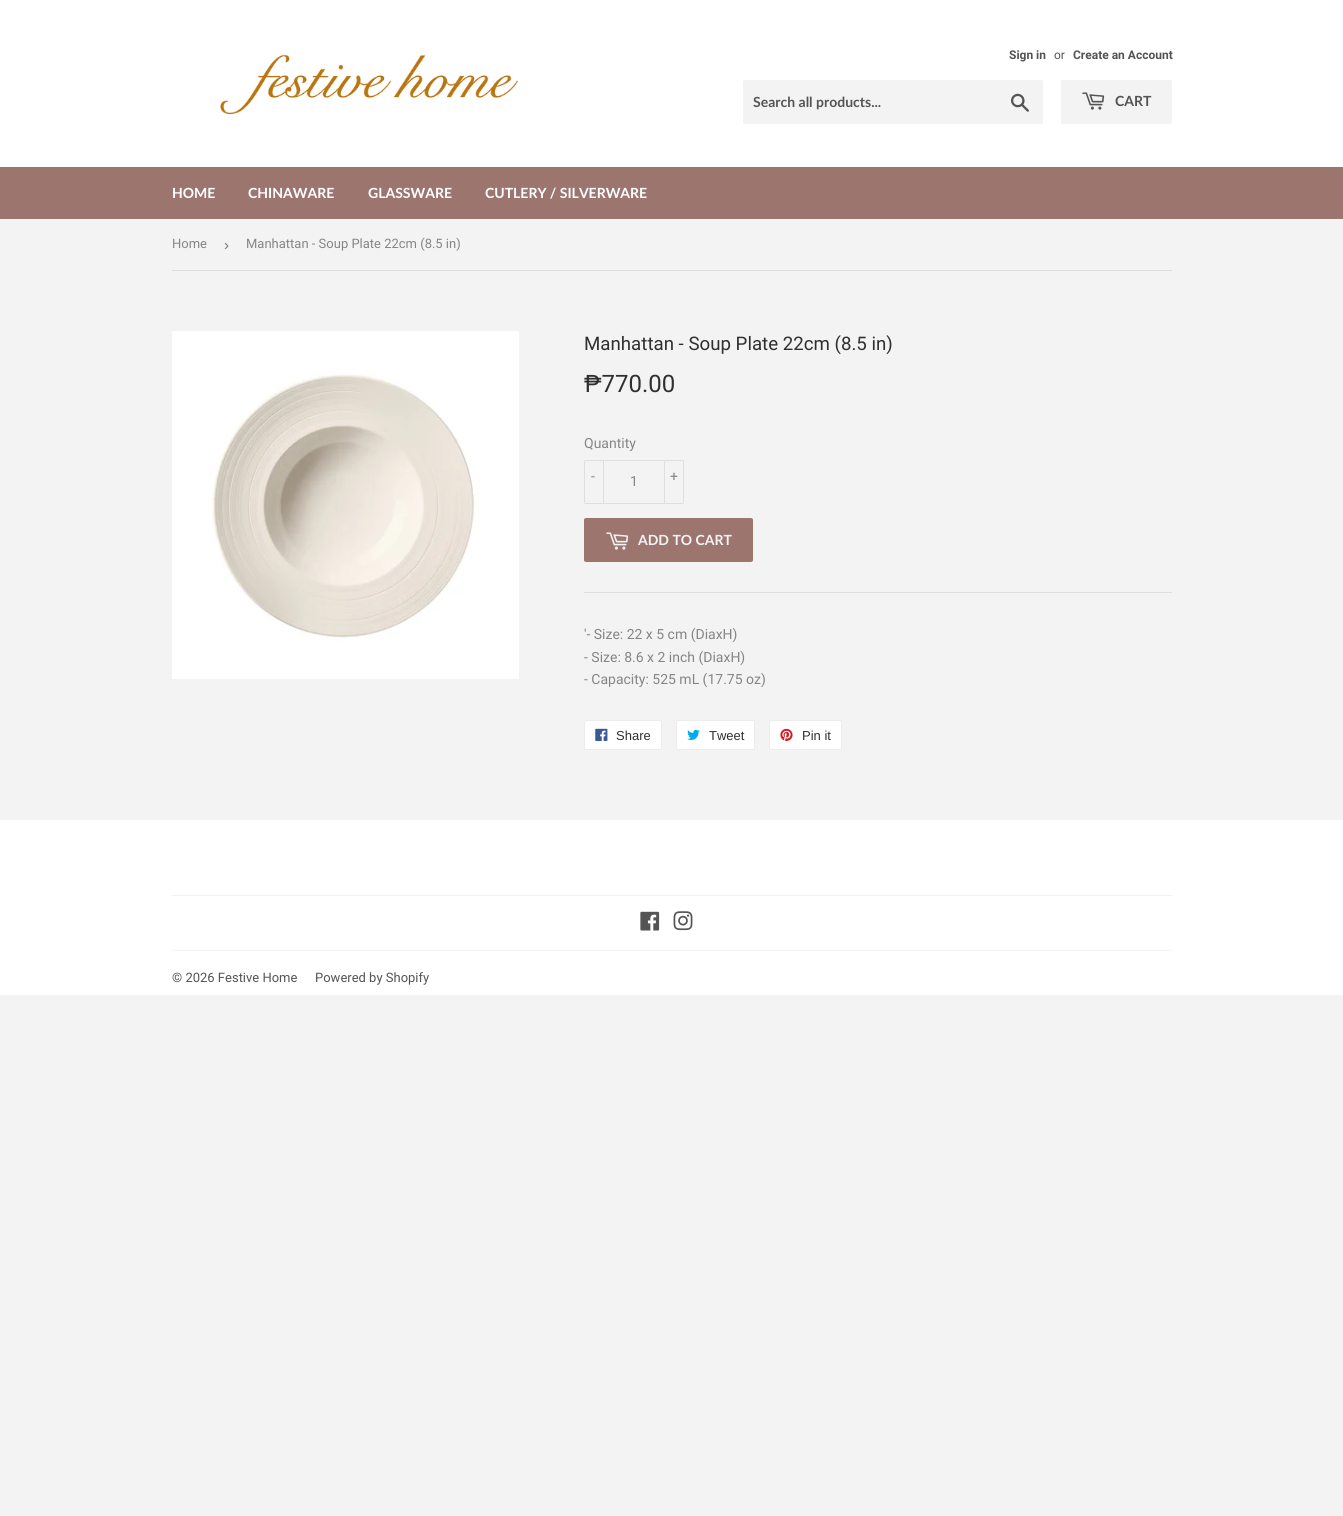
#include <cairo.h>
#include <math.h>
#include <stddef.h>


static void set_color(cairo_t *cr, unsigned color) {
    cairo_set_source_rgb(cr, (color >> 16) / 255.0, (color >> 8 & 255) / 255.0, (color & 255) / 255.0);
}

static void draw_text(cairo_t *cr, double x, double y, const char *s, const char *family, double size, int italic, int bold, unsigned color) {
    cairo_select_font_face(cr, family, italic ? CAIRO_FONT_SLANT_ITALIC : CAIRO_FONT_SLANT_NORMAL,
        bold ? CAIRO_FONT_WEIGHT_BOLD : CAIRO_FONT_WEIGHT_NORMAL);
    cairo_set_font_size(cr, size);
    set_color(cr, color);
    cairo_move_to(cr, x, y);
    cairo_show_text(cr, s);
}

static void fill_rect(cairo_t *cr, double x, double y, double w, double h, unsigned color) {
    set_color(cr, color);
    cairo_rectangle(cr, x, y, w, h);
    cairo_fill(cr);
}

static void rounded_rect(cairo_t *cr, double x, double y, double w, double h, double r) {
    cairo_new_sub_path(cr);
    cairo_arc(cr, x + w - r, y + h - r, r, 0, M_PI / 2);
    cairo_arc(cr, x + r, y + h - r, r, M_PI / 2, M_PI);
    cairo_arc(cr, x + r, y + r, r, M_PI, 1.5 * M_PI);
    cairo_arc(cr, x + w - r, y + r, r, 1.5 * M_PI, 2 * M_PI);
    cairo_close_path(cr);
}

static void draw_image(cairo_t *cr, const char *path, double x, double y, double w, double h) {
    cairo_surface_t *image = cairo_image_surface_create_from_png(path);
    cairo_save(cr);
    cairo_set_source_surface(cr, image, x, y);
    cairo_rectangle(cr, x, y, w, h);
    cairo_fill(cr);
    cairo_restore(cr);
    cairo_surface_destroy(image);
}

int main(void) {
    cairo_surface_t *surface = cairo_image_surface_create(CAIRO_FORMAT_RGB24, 1343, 1516);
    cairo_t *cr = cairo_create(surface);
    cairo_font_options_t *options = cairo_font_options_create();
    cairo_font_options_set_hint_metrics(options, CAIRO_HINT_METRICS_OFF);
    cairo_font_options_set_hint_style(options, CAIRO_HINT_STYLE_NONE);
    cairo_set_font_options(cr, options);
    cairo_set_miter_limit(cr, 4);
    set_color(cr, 0xF3F3F3);
    cairo_paint(cr);
    fill_rect(cr, 0, 0, 1343, 167, 0xFFFFFF);
    draw_image(cr, "assets/img1.png", 220, 54, 298, 61);
    draw_text(cr, 1009, 59, "Sign in", "Roboto", 12, 0, 1, 0x545454);
    draw_text(cr, 1054, 59, "or", "Roboto", 12, 0, 0, 0x545454);
    draw_text(cr, 1073, 59, "Create an Account", "Roboto", 12, 0, 1, 0x545454);
    set_color(cr, 0xF3F3F3);
    rounded_rect(cr, 743, 80, 300, 44, 2);
    cairo_fill(cr);
    draw_text(cr, 753, 107, "Search all products...", "Lato", 14, 0, 1, 0x545454);
    draw_image(cr, "assets/img2.png", 1011, 93, 18, 19);
    set_color(cr, 0xF3F3F3);
    rounded_rect(cr, 1061, 80, 111, 44, 2);
    cairo_fill(cr);
    draw_image(cr, "assets/img3.png", 1082, 92, 23, 18);
    draw_text(cr, 1115, 106, "CART", "Lato", 14, 0, 1, 0x545454);
    fill_rect(cr, 0, 167, 1343, 52, 0x9C756F);
    draw_text(cr, 172, 198, "HOME", "Lato", 14, 0, 1, 0xFFFFFF);
    draw_text(cr, 248, 198, "CHINAWARE", "Lato", 14, 0, 1, 0xFFFFFF);
    draw_text(cr, 368, 198, "GLASSWARE", "Lato", 14, 0, 1, 0xFFFFFF);
    draw_text(cr, 485, 198, "CUTLERY / SILVERWARE", "Lato", 14, 0, 1, 0xFFFFFF);
    fill_rect(cr, 172, 270, 1000, 1, 0xDEDEDE);
    draw_text(cr, 172, 248, "Home", "Roboto", 13, 0, 0, 0x858585);
    draw_text(cr, 224, 250, "›", "Liberation Sans", 15, 0, 0, 0x767676);
    draw_text(cr, 246, 248, "Manhattan - Soup Plate 22cm (8.5 in)", "Roboto", 13, 0, 0, 0x858585);
    draw_image(cr, "assets/img4.png", 172, 331, 347, 348);
    draw_text(cr, 584, 350, "Manhattan - Soup Plate 22cm (8.5 in)", "Roboto", 18.7, 0, 0, 0x2F2F2F);
    draw_text(cr, 584, 392, "₱770.00", "Roboto", 24, 0, 0, 0x2F2F2F);
    draw_text(cr, 584, 448, "Quantity", "Roboto", 14, 0, 0, 0x858585);
    rounded_rect(cr, 584.5, 460.5, 99, 43, 1.5);
    set_color(cr, 0xDEDEDE);
    cairo_set_line_width(cr, 1);
    cairo_stroke(cr);
    fill_rect(cr, 603, 460, 1, 44, 0xDEDEDE);
    draw_text(cr, 591, 481, "-", "Roboto", 14, 0, 0, 0x858585);
    draw_text(cr, 630, 486, "1", "Roboto", 14, 0, 0, 0x858585);
    fill_rect(cr, 664, 460, 1, 44, 0xDEDEDE);
    draw_text(cr, 670, 481, "+", "Roboto", 14, 0, 0, 0x858585);
    set_color(cr, 0x9C756F);
    rounded_rect(cr, 584, 518, 169, 44, 2);
    cairo_fill(cr);
    draw_image(cr, "assets/img5.png", 606, 532, 23, 18);
    draw_text(cr, 638, 545, "ADD TO CART", "Lato", 14, 0, 1, 0xF3F3F3);
    fill_rect(cr, 584, 592, 588, 1, 0xDEDEDE);
    draw_text(cr, 584, 639, "'- Size: 22 x 5 cm (DiaxH)", "Roboto", 14, 0, 0, 0x858585);
    draw_text(cr, 584, 662, "- Size: 8.6 x 2 inch (DiaxH)", "Roboto", 14, 0, 0, 0x858585);
    draw_text(cr, 584, 684, "- Capacity: 525 mL (17.75 oz)", "Roboto", 14, 0, 0, 0x858585);
    set_color(cr, 0xFFFFFF);
    rounded_rect(cr, 584.5, 720.5, 77, 29, 1.5);
    cairo_fill_preserve(cr);
    set_color(cr, 0xECECEC);
    cairo_stroke(cr);
    draw_image(cr, "assets/img6.png", 595, 728, 13, 13);
    draw_text(cr, 616, 740, "Share", "Liberation Sans", 13, 0, 0, 0x2F2F2F);
    set_color(cr, 0xFFFFFF);
    rounded_rect(cr, 676.5, 720.5, 78, 29, 1.5);
    cairo_fill_preserve(cr);
    set_color(cr, 0xECECEC);
    cairo_stroke(cr);
    draw_image(cr, "assets/img7.png", 687, 729, 13, 11);
    draw_text(cr, 709, 740, "Tweet", "Liberation Sans", 13, 0, 0, 0x2F2F2F);
    set_color(cr, 0xFFFFFF);
    rounded_rect(cr, 769.5, 720.5, 72, 29, 1.5);
    cairo_fill_preserve(cr);
    set_color(cr, 0xECECEC);
    cairo_stroke(cr);
    draw_image(cr, "assets/img8.png", 780, 728, 13, 13);
    draw_text(cr, 802, 740, "Pin it", "Liberation Sans", 13, 0, 0, 0x2F2F2F);
    fill_rect(cr, 0, 820, 1343, 175, 0xFFFFFF);
    fill_rect(cr, 172, 895, 1000, 1, 0xF2F2F2);
    draw_image(cr, "assets/img9.png", 640, 911, 20, 20);
    draw_image(cr, "assets/img10.png", 673, 911, 20, 20);
    fill_rect(cr, 172, 950, 1000, 1, 0xF2F2F2);
    draw_text(cr, 172, 982, "© 2026 Festive Home", "Roboto", 13, 0, 0, 0x545454);
    draw_text(cr, 315, 982, "Powered by Shopify", "Roboto", 13, 0, 0, 0x545454);
    cairo_surface_write_to_png(surface, "output.png");
    cairo_font_options_destroy(options);
    cairo_destroy(cr);
    cairo_surface_destroy(surface);
    return 0;
}
